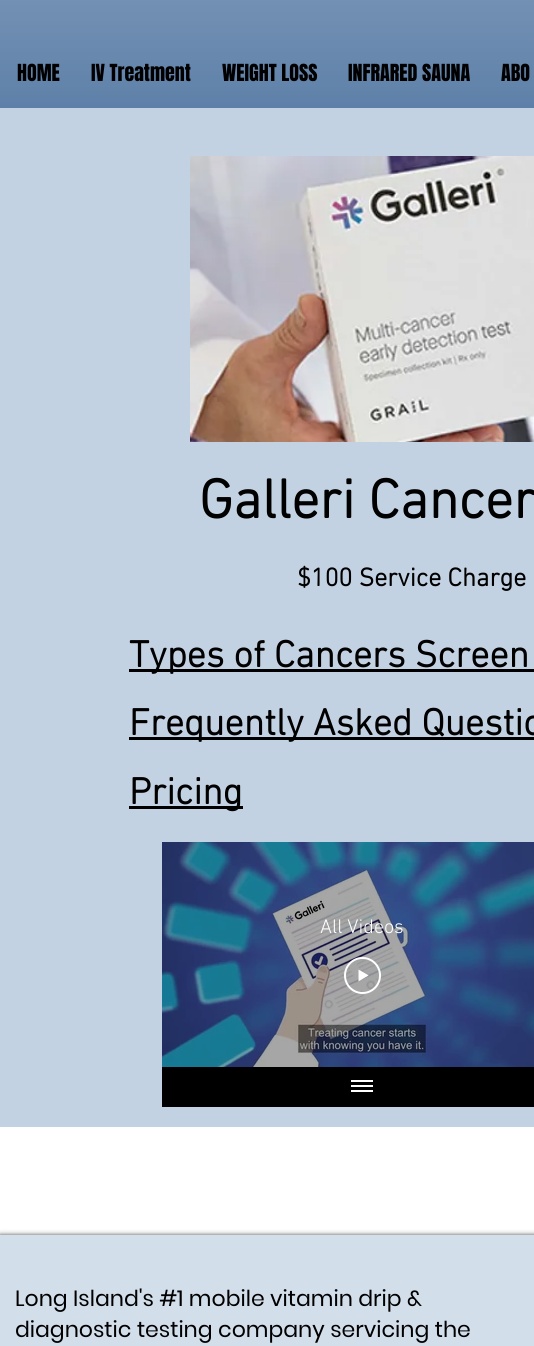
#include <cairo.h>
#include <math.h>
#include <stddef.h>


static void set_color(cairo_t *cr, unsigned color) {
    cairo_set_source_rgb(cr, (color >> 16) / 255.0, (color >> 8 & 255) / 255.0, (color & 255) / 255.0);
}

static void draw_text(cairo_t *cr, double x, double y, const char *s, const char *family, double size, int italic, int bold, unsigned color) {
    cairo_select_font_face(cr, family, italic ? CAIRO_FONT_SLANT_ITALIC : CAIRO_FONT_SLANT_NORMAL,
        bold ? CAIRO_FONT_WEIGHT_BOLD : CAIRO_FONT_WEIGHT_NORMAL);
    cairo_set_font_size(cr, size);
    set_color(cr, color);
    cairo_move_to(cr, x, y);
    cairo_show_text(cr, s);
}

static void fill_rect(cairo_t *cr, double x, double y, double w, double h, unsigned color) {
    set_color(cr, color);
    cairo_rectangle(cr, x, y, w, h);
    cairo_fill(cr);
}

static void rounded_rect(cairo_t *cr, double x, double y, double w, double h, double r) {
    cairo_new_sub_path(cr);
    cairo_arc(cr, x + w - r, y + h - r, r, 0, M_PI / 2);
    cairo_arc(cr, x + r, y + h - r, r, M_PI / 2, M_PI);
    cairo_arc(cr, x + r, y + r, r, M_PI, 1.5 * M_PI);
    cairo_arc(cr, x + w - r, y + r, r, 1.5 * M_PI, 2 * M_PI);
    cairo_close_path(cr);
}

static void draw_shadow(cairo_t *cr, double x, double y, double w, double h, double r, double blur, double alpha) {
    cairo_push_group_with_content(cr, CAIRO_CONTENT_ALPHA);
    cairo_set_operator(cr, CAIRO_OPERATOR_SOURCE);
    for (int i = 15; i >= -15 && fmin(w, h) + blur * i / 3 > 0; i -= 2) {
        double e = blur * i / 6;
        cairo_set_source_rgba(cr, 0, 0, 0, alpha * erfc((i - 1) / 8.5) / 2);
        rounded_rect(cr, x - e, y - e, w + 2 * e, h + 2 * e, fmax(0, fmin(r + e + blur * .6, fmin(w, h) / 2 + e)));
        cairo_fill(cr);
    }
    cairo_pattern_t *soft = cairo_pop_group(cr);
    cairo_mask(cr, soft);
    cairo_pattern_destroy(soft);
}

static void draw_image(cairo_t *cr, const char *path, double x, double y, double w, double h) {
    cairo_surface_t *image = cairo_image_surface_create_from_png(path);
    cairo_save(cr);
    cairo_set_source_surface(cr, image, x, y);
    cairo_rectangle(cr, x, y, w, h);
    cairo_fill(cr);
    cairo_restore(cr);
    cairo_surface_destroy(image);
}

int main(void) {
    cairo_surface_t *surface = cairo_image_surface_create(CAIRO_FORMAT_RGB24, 534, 1346);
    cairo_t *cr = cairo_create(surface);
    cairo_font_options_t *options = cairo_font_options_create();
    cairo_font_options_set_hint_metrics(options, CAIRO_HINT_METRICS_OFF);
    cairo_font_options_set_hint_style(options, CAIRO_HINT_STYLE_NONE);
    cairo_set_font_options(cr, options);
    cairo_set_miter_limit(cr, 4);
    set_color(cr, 0xFFFFFF);
    cairo_paint(cr);
    fill_rect(cr, 0, 0, 534, 108, 0x426A99);
    draw_image(cr, "assets/img1.png", 0, 0, 534, 108);
    draw_text(cr, 17, 81, "HOME", "Anton", 20, 0, 0, 0x000000);
    draw_text(cr, 91, 81, "IV Treatment", "Anton", 20, 0, 0, 0x000000);
    draw_text(cr, 222, 81, "WEIGHT LOSS", "Anton", 20, 0, 0, 0x000000);
    draw_text(cr, 348, 81, "INFRARED SAUNA", "Anton", 20, 0, 0, 0x000000);
    draw_text(cr, 501, 81, "ABO", "Anton", 20, 0, 0, 0x000000);
    fill_rect(cr, 0, 108, 534, 1019, 0xC3D2E3);
    draw_image(cr, "assets/img2.png", 190, 156, 344, 286);
    draw_text(cr, 199, 518, "Galleri Cancer", "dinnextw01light", 56, 0, 1, 0x000000);
    draw_text(cr, 297, 586, "$100 Service Charge", "dinnextw01light", 26, 0, 1, 0x000000);
    fill_rect(cr, 129, 669, 405, 3, 0x000000);
    draw_text(cr, 129, 667, "Types of Cancers Screen", "dinnextw01light", 38, 0, 1, 0x000000);
    fill_rect(cr, 129, 737, 405, 3, 0x000000);
    draw_text(cr, 129, 735, "Frequently Asked Questio", "dinnextw01light", 38, 0, 1, 0x000000);
    fill_rect(cr, 129, 806, 114, 3, 0x000000);
    draw_text(cr, 129, 804, "Pricing", "dinnextw01light", 38, 0, 1, 0x000000);
    draw_image(cr, "assets/img3.png", 162, 842, 372, 225);
    draw_text(cr, 320, 933, "All Videos", "dinnextw01light Light", 20, 0, 0, 0xFFFFFF);
    draw_image(cr, "assets/img4.png", 344, 957, 37, 37);
    fill_rect(cr, 162, 1067, 372, 40, 0x000000);
    draw_image(cr, "assets/img5.png", 351, 1080, 22, 12);
    set_color(cr, 0x000000);
    draw_shadow(cr, 0, 1235, 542, 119, 0, 2.5, 0.7);
    fill_rect(cr, 0, 1235, 534, 111, 0xD3DEEB);
    draw_text(cr, 15, 1306, "Long Island's #1 mobile vitamin drip &", "Poppins", 22, 0, 0, 0x000000);
    draw_text(cr, 15, 1337, "diagnostic testing company servicing the", "Poppins", 22, 0, 0, 0x000000);
    cairo_surface_write_to_png(surface, "output.png");
    cairo_font_options_destroy(options);
    cairo_destroy(cr);
    cairo_surface_destroy(surface);
    return 0;
}
